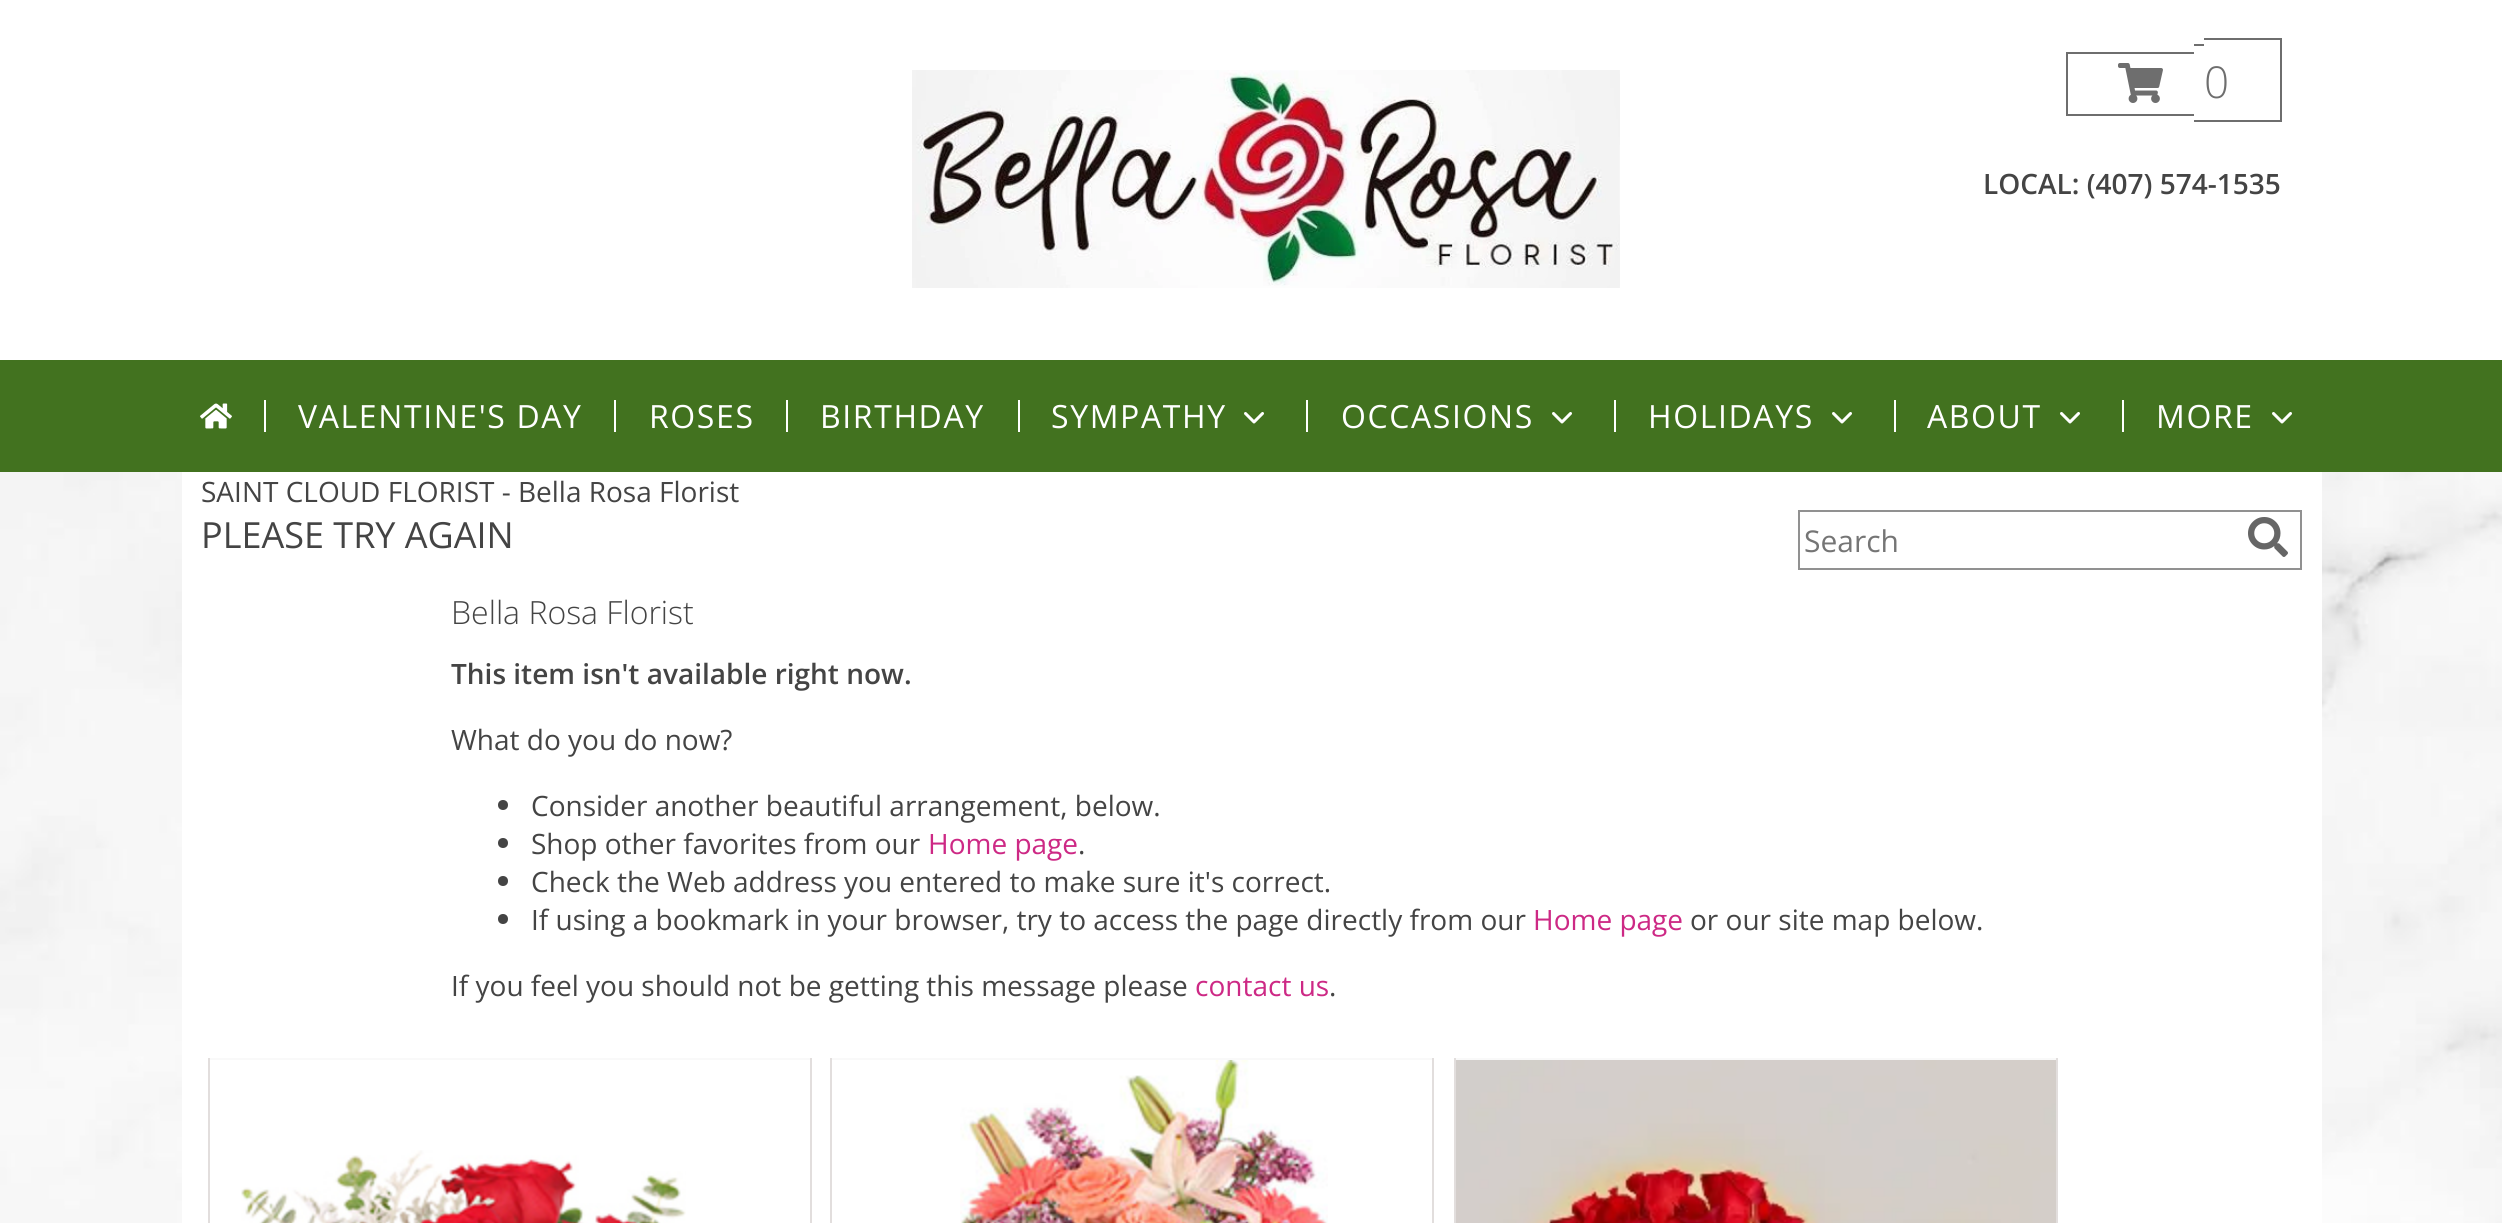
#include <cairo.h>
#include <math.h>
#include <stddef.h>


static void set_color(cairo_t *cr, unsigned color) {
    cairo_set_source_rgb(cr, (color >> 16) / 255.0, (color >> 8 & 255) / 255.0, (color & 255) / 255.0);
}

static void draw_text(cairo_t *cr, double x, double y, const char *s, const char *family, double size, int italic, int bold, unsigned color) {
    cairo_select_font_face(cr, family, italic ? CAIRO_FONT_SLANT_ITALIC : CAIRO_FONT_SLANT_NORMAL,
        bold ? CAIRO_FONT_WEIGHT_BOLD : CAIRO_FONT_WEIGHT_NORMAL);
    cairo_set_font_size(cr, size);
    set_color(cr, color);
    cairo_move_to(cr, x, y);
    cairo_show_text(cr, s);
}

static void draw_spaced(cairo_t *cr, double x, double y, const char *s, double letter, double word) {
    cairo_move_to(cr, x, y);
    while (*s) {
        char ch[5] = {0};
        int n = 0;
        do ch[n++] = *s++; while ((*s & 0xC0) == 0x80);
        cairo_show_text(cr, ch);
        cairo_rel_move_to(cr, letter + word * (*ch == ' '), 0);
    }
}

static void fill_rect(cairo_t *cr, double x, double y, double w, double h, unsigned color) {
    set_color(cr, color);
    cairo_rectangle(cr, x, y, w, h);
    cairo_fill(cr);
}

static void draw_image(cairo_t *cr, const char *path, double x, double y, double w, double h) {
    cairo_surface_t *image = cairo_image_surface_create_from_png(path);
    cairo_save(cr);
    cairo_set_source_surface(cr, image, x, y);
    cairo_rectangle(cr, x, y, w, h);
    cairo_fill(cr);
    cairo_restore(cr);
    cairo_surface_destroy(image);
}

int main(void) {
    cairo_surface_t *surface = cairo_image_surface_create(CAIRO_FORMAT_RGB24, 2502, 1223);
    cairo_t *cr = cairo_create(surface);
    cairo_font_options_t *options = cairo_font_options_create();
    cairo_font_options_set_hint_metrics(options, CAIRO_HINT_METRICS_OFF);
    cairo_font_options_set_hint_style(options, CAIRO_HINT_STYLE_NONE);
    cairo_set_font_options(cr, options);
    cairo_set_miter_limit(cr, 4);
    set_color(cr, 0xFFFFFF);
    cairo_paint(cr);
    draw_image(cr, "assets/img1.png", 0, 472, 2502, 751);
    fill_rect(cr, 182, 472, 2140, 751, 0xFFFFFF);
    draw_image(cr, "assets/img2.png", 912, 70, 708, 218);
    fill_rect(cr, 2066, 52, 128, 2, 0x6E6E6E);
    fill_rect(cr, 2066, 114, 128, 2, 0x6E6E6E);
    fill_rect(cr, 2066, 52, 2, 64, 0x6E6E6E);
    fill_rect(cr, 2194, 44, 10, 2, 0x6E6E6E);
    fill_rect(cr, 2194, 120, 10, 2, 0x6E6E6E);
    fill_rect(cr, 2204, 38, 78, 2, 0x6E6E6E);
    fill_rect(cr, 2280, 38, 2, 84, 0x6E6E6E);
    fill_rect(cr, 2204, 120, 78, 2, 0x6E6E6E);
    draw_image(cr, "assets/img3.png", 2118, 63, 45, 40);
    draw_text(cr, 2204, 98, "0", "Open Sans Light", 44, 0, 0, 0x6E6E6E);
    draw_text(cr, 1983, 194, "LOCAL: (407) 574-1535", "Open Sans SemiBold", 28, 0, 0, 0x444444);
    fill_rect(cr, 0, 360, 2502, 112, 0x42721F);
    draw_image(cr, "assets/img4.png", 200, 403, 32, 26);
    fill_rect(cr, 264, 400, 2, 32, 0xFFFFFF);
    cairo_select_font_face(cr, "Open Sans", CAIRO_FONT_SLANT_NORMAL, CAIRO_FONT_WEIGHT_NORMAL);
    cairo_set_font_size(cr, 32);
    draw_spaced(cr, 298, 428, "VALENTINE'S DAY", 1.6, 0);
    fill_rect(cr, 614, 400, 2, 32, 0xFFFFFF);
    draw_spaced(cr, 649, 428, "ROSES", 1.6, 0);
    fill_rect(cr, 786, 400, 2, 32, 0xFFFFFF);
    draw_spaced(cr, 820, 428, "BIRTHDAY", 1.6, 0);
    fill_rect(cr, 1018, 400, 2, 32, 0xFFFFFF);
    draw_spaced(cr, 1051, 428, "SYMPATHY", 1.6, 0);
    draw_image(cr, "assets/img5.png", 1244, 412, 20, 12);
    fill_rect(cr, 1306, 400, 2, 32, 0xFFFFFF);
    draw_spaced(cr, 1341, 428, "OCCASIONS", 1.6, 0);
    draw_image(cr, "assets/img5.png", 1552, 412, 20, 12);
    fill_rect(cr, 1614, 400, 2, 32, 0xFFFFFF);
    draw_spaced(cr, 1648, 428, "HOLIDAYS", 1.6, 0);
    draw_image(cr, "assets/img5.png", 1832, 412, 20, 12);
    fill_rect(cr, 1894, 400, 2, 32, 0xFFFFFF);
    draw_spaced(cr, 1927, 428, "ABOUT", 1.6, 0);
    draw_image(cr, "assets/img5.png", 2060, 412, 20, 12);
    fill_rect(cr, 2122, 400, 2, 32, 0xFFFFFF);
    draw_spaced(cr, 2156, 428, "MORE", 1.6, 0);
    draw_image(cr, "assets/img5.png", 2272, 412, 20, 12);
    draw_text(cr, 201, 502, "SAINT CLOUD FLORIST - Bella Rosa Florist", "Open Sans", 28, 0, 0, 0x444444);
    draw_text(cr, 201, 548, "PLEASE TRY AGAIN", "Open Sans", 36, 0, 0, 0x444444);
    cairo_rectangle(cr, 1799, 511, 502, 58);
    set_color(cr, 0x919191);
    cairo_stroke(cr);
    draw_text(cr, 1804, 552, "Search", "Open Sans", 30, 0, 0, 0x757575);
    draw_image(cr, "assets/img6.png", 2248, 517, 40, 40);
    draw_text(cr, 451, 624, "Bella Rosa Florist", "Open Sans Light", 32, 0, 0, 0x444444);
    draw_text(cr, 451, 684, "This item isn't available right now.", "Open Sans SemiBold", 28, 0, 0, 0x444444);
    draw_text(cr, 451, 750, "What do you do now?", "Open Sans", 28, 0, 0, 0x444444);
    cairo_new_path(cr);
    cairo_arc(cr, 503, 805, 5, 0, 2 * M_PI);
    cairo_fill(cr);
    draw_text(cr, 531, 816, "Consider another beautiful arrangement, below.", "Open Sans", 28, 0, 0, 0x444444);
    cairo_new_path(cr);
    cairo_arc(cr, 503, 843, 5, 0, 2 * M_PI);
    cairo_fill(cr);
    draw_text(cr, 531, 854, "Shop other favorites from our", "Open Sans", 28, 0, 0, 0x444444);
    draw_text(cr, 928, 854, "Home page", "Open Sans", 28, 0, 0, 0xCD2985);
    draw_text(cr, 1078, 854, ".", "Open Sans", 28, 0, 0, 0x444444);
    cairo_new_path(cr);
    cairo_arc(cr, 503, 881, 5, 0, 2 * M_PI);
    cairo_fill(cr);
    draw_text(cr, 531, 892, "Check the Web address you entered to make sure it's correct.", "Open Sans", 28, 0, 0, 0x444444);
    cairo_new_path(cr);
    cairo_arc(cr, 503, 919, 5, 0, 2 * M_PI);
    cairo_fill(cr);
    draw_text(cr, 531, 930, "If using a bookmark in your browser, try to access the page directly from our", "Open Sans", 28, 0, 0, 0x444444);
    draw_text(cr, 1533, 930, "Home page", "Open Sans", 28, 0, 0, 0xCD2985);
    draw_text(cr, 1690, 930, "or our site map below.", "Open Sans", 28, 0, 0, 0x444444);
    draw_text(cr, 451, 996, "If you feel you should not be getting this message please", "Open Sans", 28, 0, 0, 0x444444);
    draw_text(cr, 1195, 996, "contact us", "Open Sans", 28, 0, 0, 0xCD2985);
    draw_text(cr, 1329, 996, ".", "Open Sans", 28, 0, 0, 0x444444);
    fill_rect(cr, 208, 1058, 604, 2, 0xF9F9F9);
    fill_rect(cr, 810, 1058, 2, 165, 0xE2DEDD);
    fill_rect(cr, 208, 1058, 2, 165, 0xE2DEDD);
    draw_image(cr, "assets/img7.png", 241, 1150, 445, 73);
    fill_rect(cr, 830, 1058, 604, 2, 0xF9F9F9);
    fill_rect(cr, 1432, 1058, 2, 165, 0xE2DEDD);
    fill_rect(cr, 830, 1058, 2, 165, 0xE2DEDD);
    draw_image(cr, "assets/img8.png", 960, 1060, 368, 163);
    fill_rect(cr, 1454, 1058, 604, 2, 0xF9F9F9);
    fill_rect(cr, 2056, 1058, 2, 165, 0xE2DEDD);
    fill_rect(cr, 1454, 1058, 2, 165, 0xE2DEDD);
    draw_image(cr, "assets/img9.png", 1456, 1060, 600, 163);
    cairo_surface_write_to_png(surface, "output.png");
    cairo_font_options_destroy(options);
    cairo_destroy(cr);
    cairo_surface_destroy(surface);
    return 0;
}
